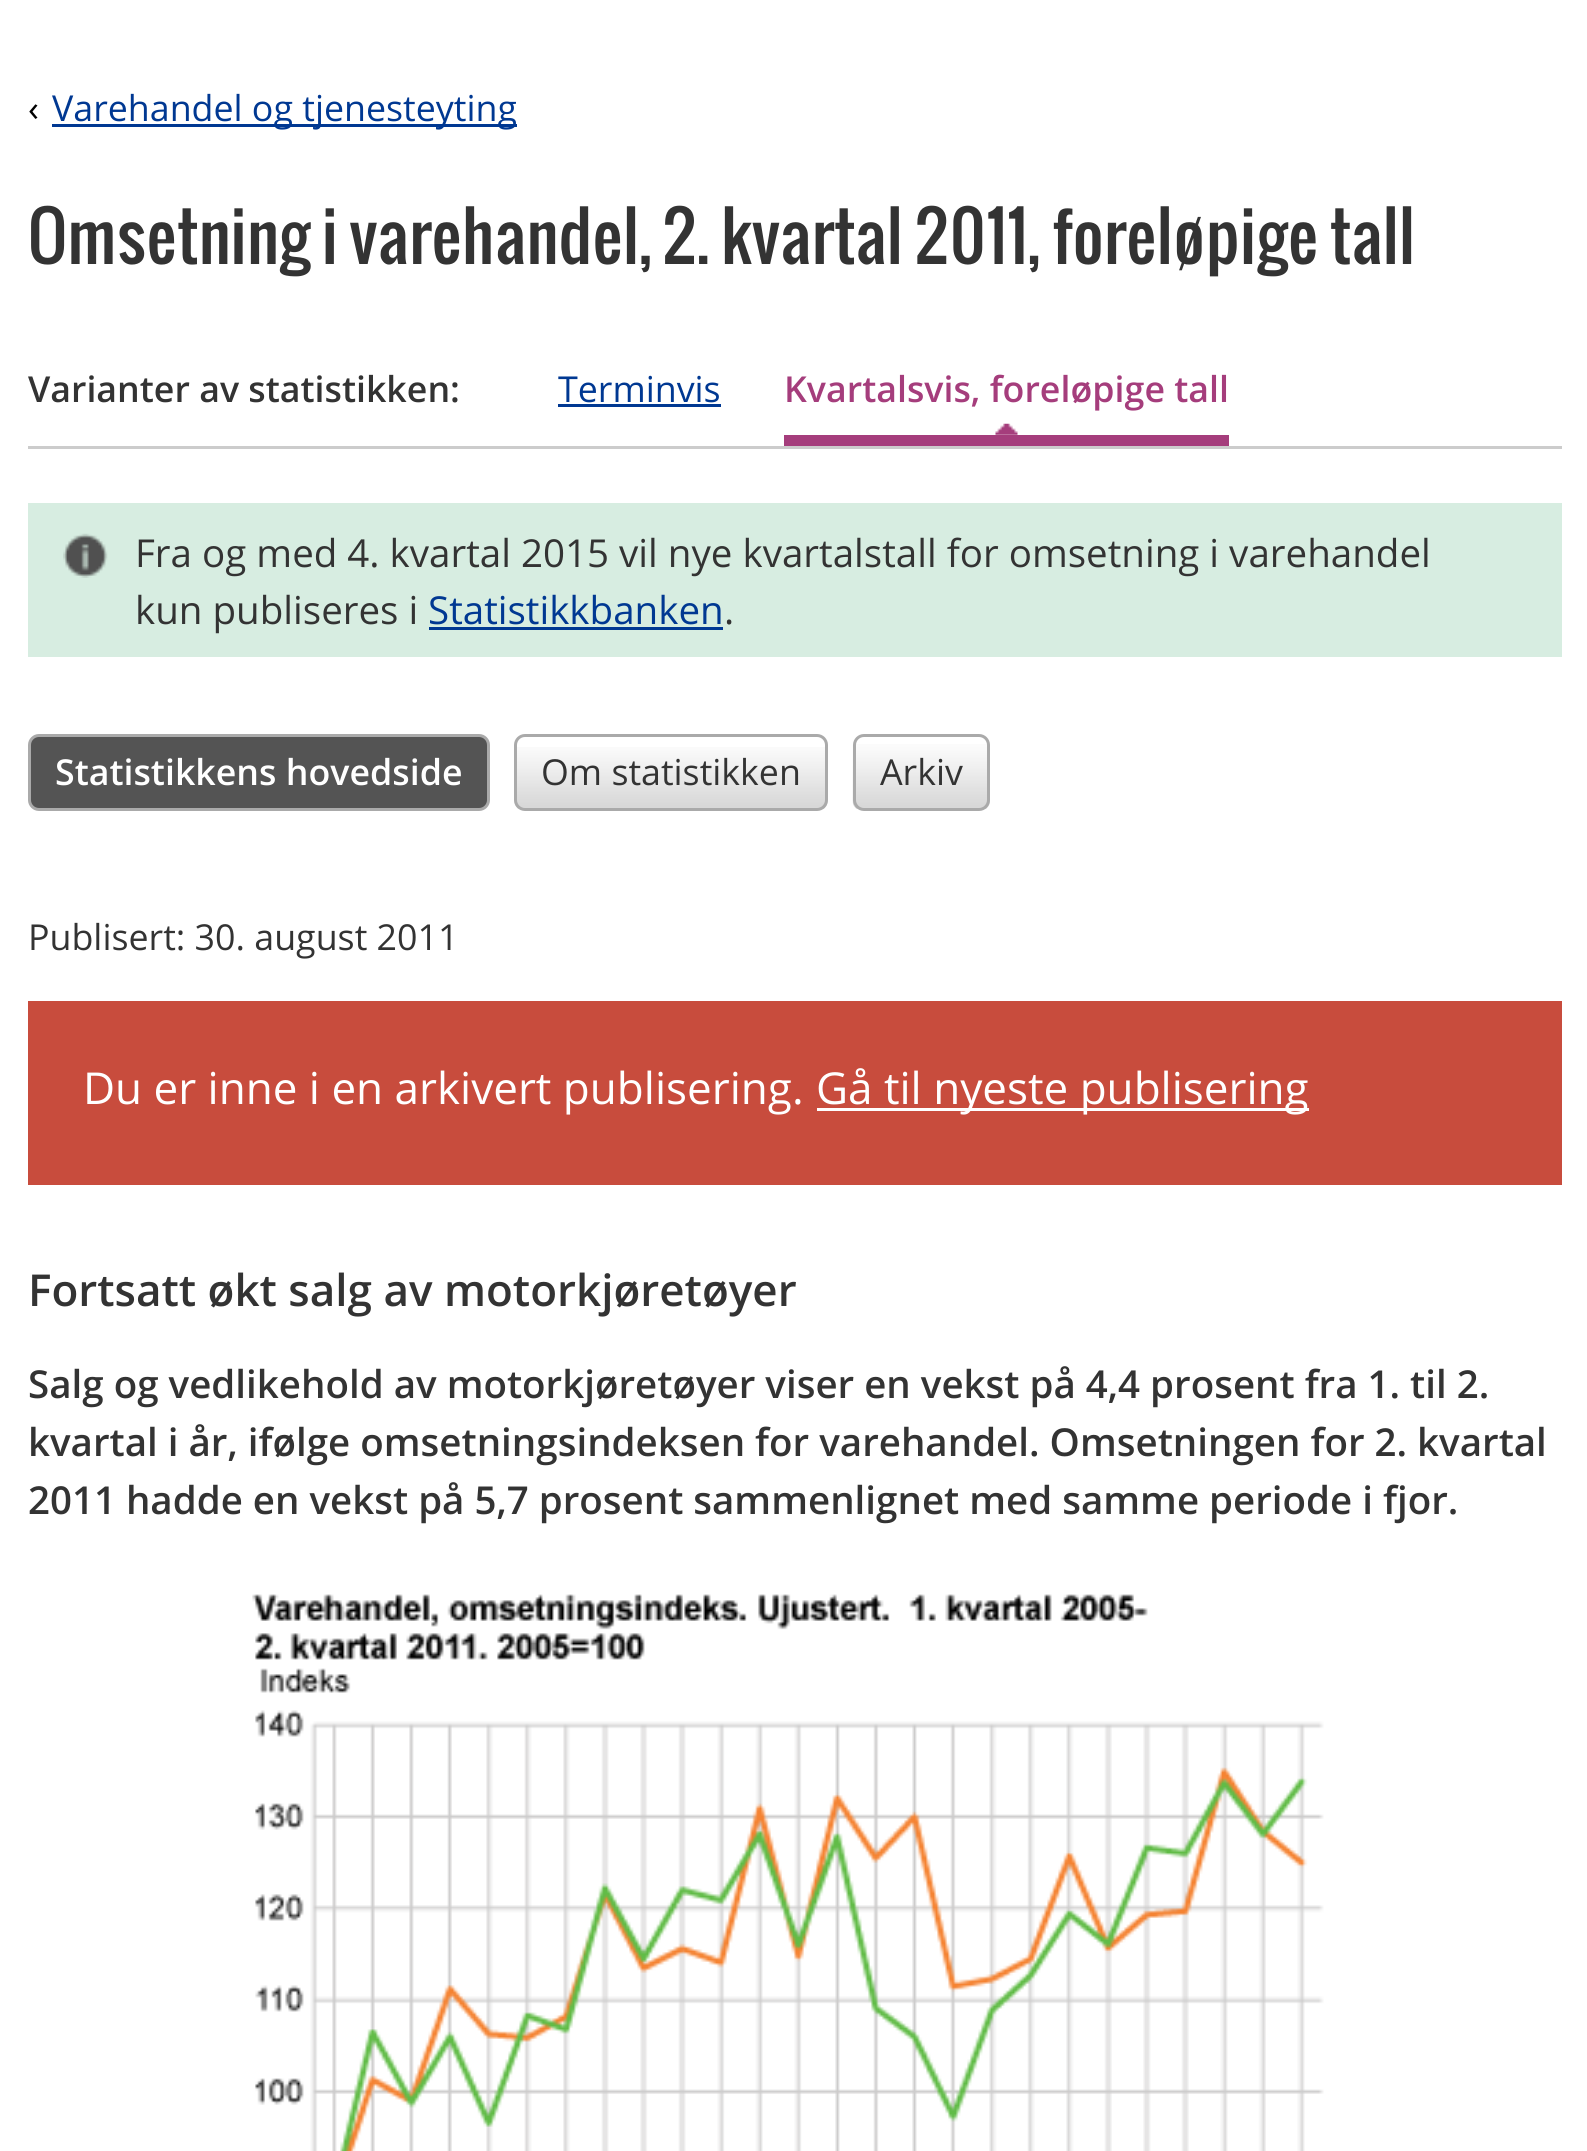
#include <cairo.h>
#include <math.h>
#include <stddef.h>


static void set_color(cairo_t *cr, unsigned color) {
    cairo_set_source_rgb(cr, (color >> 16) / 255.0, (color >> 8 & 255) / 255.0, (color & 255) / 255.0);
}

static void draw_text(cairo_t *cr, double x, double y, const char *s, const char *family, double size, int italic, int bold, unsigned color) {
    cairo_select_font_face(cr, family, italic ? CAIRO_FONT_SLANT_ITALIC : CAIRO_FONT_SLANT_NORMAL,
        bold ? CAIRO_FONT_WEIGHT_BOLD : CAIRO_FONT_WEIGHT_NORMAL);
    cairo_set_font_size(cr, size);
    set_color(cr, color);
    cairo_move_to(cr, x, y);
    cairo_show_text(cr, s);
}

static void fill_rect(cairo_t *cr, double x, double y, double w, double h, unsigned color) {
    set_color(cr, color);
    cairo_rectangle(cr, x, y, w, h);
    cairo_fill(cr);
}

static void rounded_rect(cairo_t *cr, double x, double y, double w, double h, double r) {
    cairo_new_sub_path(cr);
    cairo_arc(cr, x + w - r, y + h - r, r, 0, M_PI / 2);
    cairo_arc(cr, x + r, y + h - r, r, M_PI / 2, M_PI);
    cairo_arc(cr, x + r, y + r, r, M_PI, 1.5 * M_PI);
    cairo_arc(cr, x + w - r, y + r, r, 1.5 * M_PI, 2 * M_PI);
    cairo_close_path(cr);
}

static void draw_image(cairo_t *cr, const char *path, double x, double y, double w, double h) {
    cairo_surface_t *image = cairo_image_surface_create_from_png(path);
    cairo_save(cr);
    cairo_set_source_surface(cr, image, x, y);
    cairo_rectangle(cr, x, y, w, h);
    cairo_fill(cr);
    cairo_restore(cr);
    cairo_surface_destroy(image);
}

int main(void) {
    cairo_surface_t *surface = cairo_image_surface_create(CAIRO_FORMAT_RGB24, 1587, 2151);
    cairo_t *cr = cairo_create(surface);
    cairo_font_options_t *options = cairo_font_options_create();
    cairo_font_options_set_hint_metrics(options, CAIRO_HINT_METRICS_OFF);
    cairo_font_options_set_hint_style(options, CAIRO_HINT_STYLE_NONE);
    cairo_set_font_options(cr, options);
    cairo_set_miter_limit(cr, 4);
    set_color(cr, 0xFFFFFF);
    cairo_paint(cr);
    draw_text(cr, 28, 121, "‹", "Open Sans", 35.75, 0, 0, 0x000000);
    fill_rect(cr, 52, 124, 465, 3, 0x003892);
    draw_text(cr, 52, 121, "Varehandel og tjenesteyting", "Open Sans", 35.75, 0, 0, 0x003892);
    draw_text(cr, 28, 264, "Omsetning i varehandel,", "Oswald", 66, 0, 0, 0x333333);
    draw_text(cr, 662, 264, "2. kvartal 2011, foreløpige tall", "Oswald", 66, 0, 0, 0x333333);
    fill_rect(cr, 28, 446, 1534, 3, 0xCCCCCC);
    draw_text(cr, 28, 402, "Varianter av statistikken:", "Open Sans SemiBold", 35.75, 0, 0, 0x333333);
    draw_text(cr, 558, 402, "Terminvis", "Open Sans", 35.75, 0, 0, 0x003892);
    fill_rect(cr, 558, 404, 163, 3, 0x003892);
    draw_image(cr, "assets/img1.png", 995, 423, 23, 12);
    fill_rect(cr, 784, 435, 445, 11, 0xA53D7C);
    draw_text(cr, 784, 402, "Kvartalsvis, foreløpige tall", "Open Sans SemiBold", 35.75, 0, 0, 0xA53D7C);
    fill_rect(cr, 28, 503, 1534, 154, 0xD7EDE1);
    draw_image(cr, "assets/img2.png", 63, 533, 45, 45);
    draw_text(cr, 135, 567, "Fra og med 4. kvartal 2015 vil nye kvartalstall for omsetning i varehandel", "Open Sans", 38.5, 0, 0, 0x333333);
    draw_text(cr, 135, 624, "kun publiseres i", "Open Sans", 38.5, 0, 0, 0x333333);
    draw_text(cr, 428, 624, "Statistikkbanken", "Open Sans", 38.5, 0, 0, 0x003892);
    fill_rect(cr, 429, 627, 294, 3, 0x003892);
    draw_text(cr, 724, 624, ".", "Open Sans", 38.5, 0, 0, 0x333333);
    set_color(cr, 0x545454);
    rounded_rect(cr, 29.5, 735.5, 459, 74, 9.5);
    cairo_fill_preserve(cr);
    set_color(cr, 0xAAAAAA);
    cairo_set_line_width(cr, 3);
    cairo_stroke(cr);
    draw_text(cr, 55, 785, "Statistikkens hovedside", "Open Sans SemiBold", 35.75, 0, 0, 0xFFFFFF);
    draw_image(cr, "assets/img3.png", 514, 747, 314, 62);
    rounded_rect(cr, 515.5, 735.5, 311, 74, 9.5);
    set_color(cr, 0xAAAAAA);
    cairo_stroke(cr);
    draw_text(cr, 541, 785, "Om statistikken", "Open Sans", 35.75, 0, 0, 0x333333);
    draw_image(cr, "assets/img4.png", 852, 744, 138, 65);
    rounded_rect(cr, 854.5, 735.5, 134, 74, 9.5);
    set_color(cr, 0xAAAAAA);
    cairo_stroke(cr);
    draw_text(cr, 880, 785, "Arkiv", "Open Sans", 35.75, 0, 0, 0x333333);
    draw_text(cr, 28, 950, "Publisert: 30. august 2011", "Open Sans", 35.75, 0, 0, 0x333333);
    fill_rect(cr, 28, 1001, 1534, 184, 0xC84C3D);
    draw_text(cr, 83, 1104, "Du er inne i en arkivert publisering.", "Open Sans", 44, 0, 0, 0xFFFFFF);
    fill_rect(cr, 817, 1108, 492, 3, 0xFFFFFF);
    draw_text(cr, 816, 1104, "Gå til nyeste publisering", "Open Sans", 44, 0, 0, 0xFFFFFF);
    draw_text(cr, 28, 1306, "Fortsatt økt salg av motorkjøretøyer", "Open Sans SemiBold", 44, 0, 0, 0x333333);
    draw_text(cr, 28, 1398, "Salg og vedlikehold av motorkjøretøyer viser en vekst på 4,4 prosent fra 1. til 2.", "Open Sans SemiBold", 38.5, 0, 0, 0x333333);
    draw_text(cr, 28, 1456, "kvartal i år, ifølge omsetningsindeksen for varehandel. Omsetningen for 2. kvartal", "Open Sans SemiBold", 38.5, 0, 0, 0x333333);
    draw_text(cr, 28, 1514, "2011 hadde en vekst på 5,7 prosent sammenlignet med samme periode i fjor.", "Open Sans SemiBold", 38.5, 0, 0, 0x333333);
    draw_image(cr, "assets/img5.png", 252, 1594, 1072, 557);
    cairo_surface_write_to_png(surface, "output.png");
    cairo_font_options_destroy(options);
    cairo_destroy(cr);
    cairo_surface_destroy(surface);
    return 0;
}
